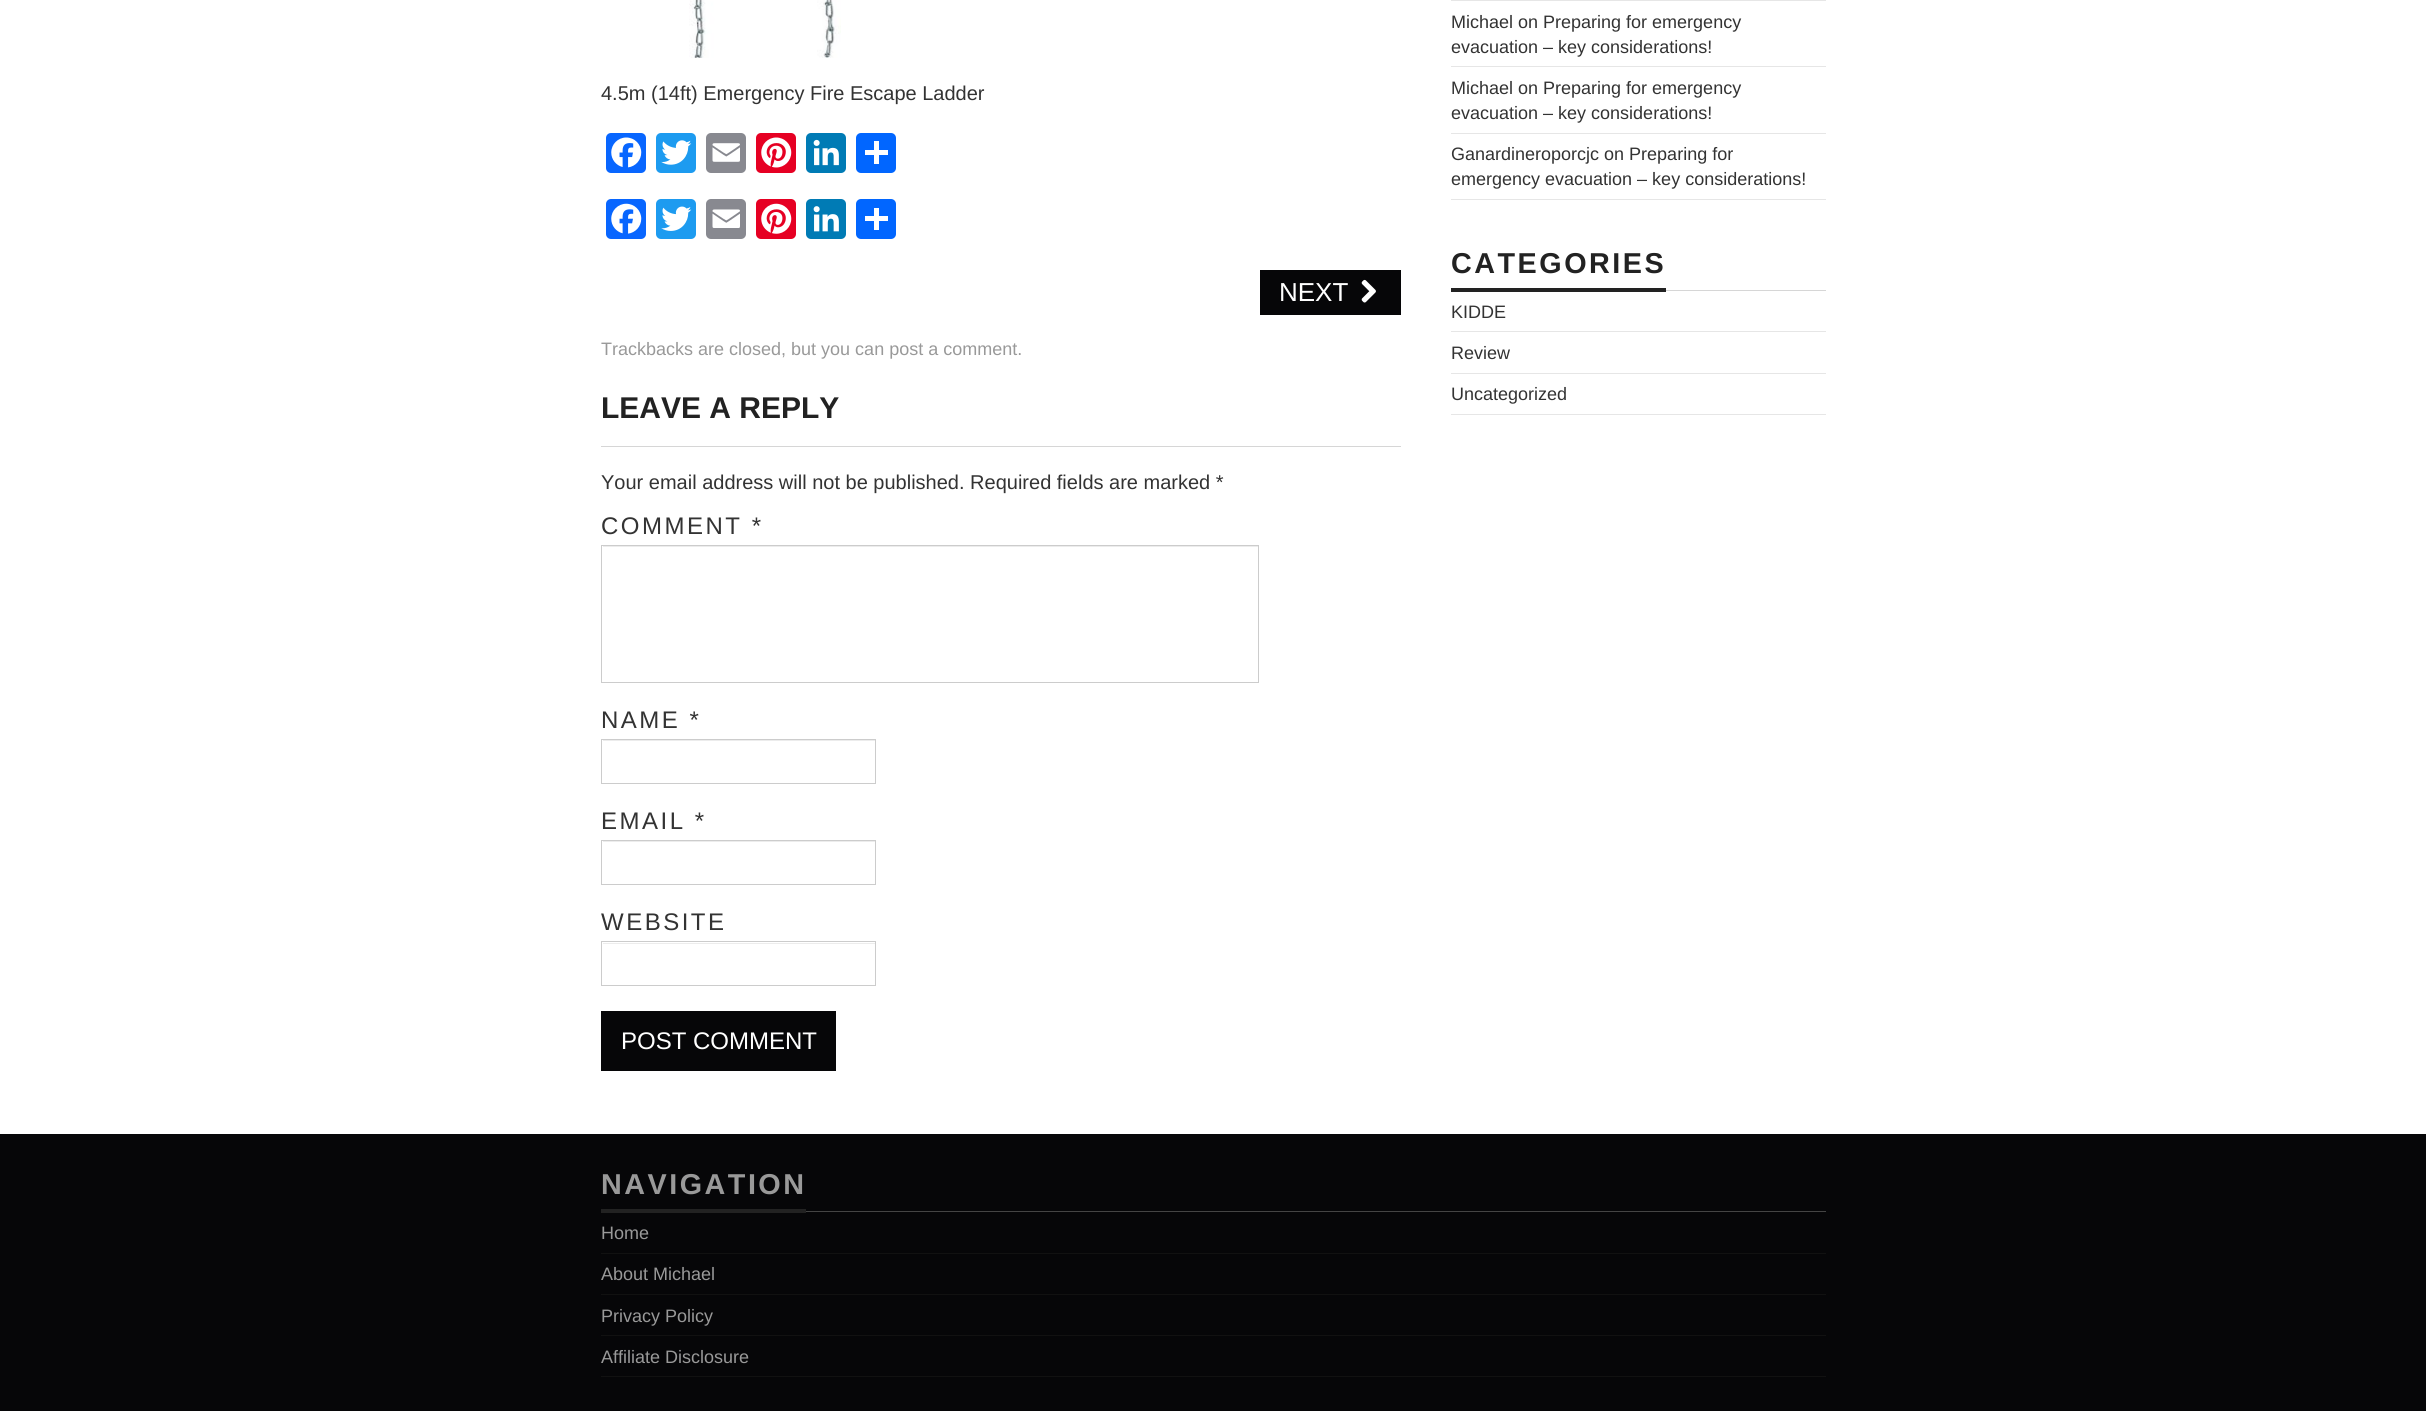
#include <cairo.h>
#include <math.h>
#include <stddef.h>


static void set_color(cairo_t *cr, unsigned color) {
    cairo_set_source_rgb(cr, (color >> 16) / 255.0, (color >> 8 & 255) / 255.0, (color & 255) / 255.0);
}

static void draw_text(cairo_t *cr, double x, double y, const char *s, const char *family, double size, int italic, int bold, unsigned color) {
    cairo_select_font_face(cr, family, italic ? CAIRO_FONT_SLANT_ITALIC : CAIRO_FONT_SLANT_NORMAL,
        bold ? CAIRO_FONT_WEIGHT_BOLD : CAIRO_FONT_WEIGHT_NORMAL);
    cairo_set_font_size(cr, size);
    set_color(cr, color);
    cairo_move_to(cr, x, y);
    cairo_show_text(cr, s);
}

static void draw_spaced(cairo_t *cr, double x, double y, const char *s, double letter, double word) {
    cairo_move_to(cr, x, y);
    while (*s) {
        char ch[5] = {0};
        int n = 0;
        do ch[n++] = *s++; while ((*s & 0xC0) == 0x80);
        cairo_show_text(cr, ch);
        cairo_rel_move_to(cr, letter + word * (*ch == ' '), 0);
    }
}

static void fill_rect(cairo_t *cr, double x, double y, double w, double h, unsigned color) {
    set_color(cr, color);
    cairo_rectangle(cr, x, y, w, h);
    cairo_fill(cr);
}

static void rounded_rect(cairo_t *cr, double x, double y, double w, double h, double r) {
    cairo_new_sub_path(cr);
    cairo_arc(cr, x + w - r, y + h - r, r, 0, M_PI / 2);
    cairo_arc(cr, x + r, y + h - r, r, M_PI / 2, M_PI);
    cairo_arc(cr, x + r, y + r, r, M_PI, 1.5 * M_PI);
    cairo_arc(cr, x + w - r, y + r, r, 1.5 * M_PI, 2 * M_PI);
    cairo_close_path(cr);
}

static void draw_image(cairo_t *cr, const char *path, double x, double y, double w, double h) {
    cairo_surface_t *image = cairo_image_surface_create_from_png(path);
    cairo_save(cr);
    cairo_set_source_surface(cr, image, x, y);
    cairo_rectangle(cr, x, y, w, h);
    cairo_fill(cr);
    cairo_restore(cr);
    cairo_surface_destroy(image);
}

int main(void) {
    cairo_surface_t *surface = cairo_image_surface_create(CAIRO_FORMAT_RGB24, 2426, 1411);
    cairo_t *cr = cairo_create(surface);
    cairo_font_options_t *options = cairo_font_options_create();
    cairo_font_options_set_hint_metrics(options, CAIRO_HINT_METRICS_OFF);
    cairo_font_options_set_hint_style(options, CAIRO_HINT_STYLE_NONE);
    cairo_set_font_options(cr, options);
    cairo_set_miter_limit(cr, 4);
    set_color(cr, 0xFFFFFF);
    cairo_paint(cr);
    draw_image(cr, "assets/img1.png", 689, 0, 152, 58);
    draw_text(cr, 601, 100, "4.5m (14ft) Emergency Fire Escape Ladder", "Liberation Sans", 20, 0, 0, 0x333333);
    set_color(cr, 0x0866FF);
    rounded_rect(cr, 606, 133, 40, 40, 5);
    cairo_fill(cr);
    draw_image(cr, "assets/img2.png", 611, 137, 31, 31);
    set_color(cr, 0x1D9BF0);
    rounded_rect(cr, 656, 133, 40, 40, 5);
    cairo_fill(cr);
    draw_image(cr, "assets/img3.png", 661, 140, 31, 25);
    set_color(cr, 0x888990);
    rounded_rect(cr, 706, 133, 40, 40, 5);
    cairo_fill(cr);
    draw_image(cr, "assets/img4.png", 712, 143, 28, 19);
    set_color(cr, 0xE60023);
    rounded_rect(cr, 756, 133, 40, 40, 5);
    cairo_fill(cr);
    draw_image(cr, "assets/img5.png", 761, 137, 31, 31);
    set_color(cr, 0x007BB5);
    rounded_rect(cr, 806, 133, 40, 40, 5);
    cairo_fill(cr);
    draw_image(cr, "assets/img6.png", 813, 139, 26, 27);
    set_color(cr, 0x0166FF);
    rounded_rect(cr, 856, 133, 40, 40, 5);
    cairo_fill(cr);
    fill_rect(cr, 874, 141, 5, 23, 0xFFFFFF);
    fill_rect(cr, 865, 150, 23, 5, 0xFFFFFF);
    set_color(cr, 0x0866FF);
    rounded_rect(cr, 606, 199, 40, 40, 5);
    cairo_fill(cr);
    draw_image(cr, "assets/img7.png", 611, 203, 31, 31);
    set_color(cr, 0x1D9BF0);
    rounded_rect(cr, 656, 199, 40, 40, 5);
    cairo_fill(cr);
    draw_image(cr, "assets/img8.png", 661, 206, 31, 25);
    set_color(cr, 0x888990);
    rounded_rect(cr, 706, 199, 40, 40, 5);
    cairo_fill(cr);
    draw_image(cr, "assets/img9.png", 712, 209, 28, 19);
    set_color(cr, 0xE60023);
    rounded_rect(cr, 756, 199, 40, 40, 5);
    cairo_fill(cr);
    draw_image(cr, "assets/img10.png", 761, 203, 31, 31);
    set_color(cr, 0x007BB5);
    rounded_rect(cr, 806, 199, 40, 40, 5);
    cairo_fill(cr);
    draw_image(cr, "assets/img11.png", 813, 206, 26, 26);
    set_color(cr, 0x0166FF);
    rounded_rect(cr, 856, 199, 40, 40, 5);
    cairo_fill(cr);
    fill_rect(cr, 874, 208, 5, 22, 0xFFFFFF);
    fill_rect(cr, 865, 216, 23, 5, 0xFFFFFF);
    fill_rect(cr, 1260, 270, 141, 45, 0x060608);
    draw_text(cr, 1279, 301, "NEXT", "Arimo", 26, 0, 0, 0xFFFFFF);
    draw_image(cr, "assets/img12.png", 1361, 279, 15, 24);
    draw_text(cr, 601, 355, "Trackbacks are closed, but you can post a comment.", "Liberation Sans", 18, 0, 0, 0x999999);
    fill_rect(cr, 601, 446, 800, 1, 0xD6D6D6);
    draw_text(cr, 601, 418, "LEAVE A REPLY", "Arimo", 30, 0, 1, 0x222222);
    draw_text(cr, 601, 489, "Your email address will not be published. Required fields are marked *", "Liberation Sans", 20, 0, 0, 0x333333);
    cairo_select_font_face(cr, "Arimo", CAIRO_FONT_SLANT_NORMAL, CAIRO_FONT_WEIGHT_NORMAL);
    cairo_set_font_size(cr, 24);
    draw_spaced(cr, 601, 534, "COMMENT *", 2.5, 0);
    fill_rect(cr, 603, 546, 655, 1, 0xECECEC);
    cairo_rectangle(cr, 601.5, 545.5, 657, 137);
    set_color(cr, 0xCCCCCC);
    cairo_set_line_width(cr, 1);
    cairo_stroke(cr);
    set_color(cr, 0x333333);
    draw_spaced(cr, 601, 728, "NAME *", 2.5, 0);
    fill_rect(cr, 603, 740, 272, 1, 0xECECEC);
    cairo_rectangle(cr, 601.5, 739.5, 274, 44);
    set_color(cr, 0xCCCCCC);
    cairo_stroke(cr);
    set_color(cr, 0x333333);
    draw_spaced(cr, 601, 829, "EMAIL *", 2.5, 0);
    fill_rect(cr, 603, 841, 272, 1, 0xECECEC);
    cairo_rectangle(cr, 601.5, 840.5, 274, 44);
    set_color(cr, 0xCCCCCC);
    cairo_stroke(cr);
    set_color(cr, 0x333333);
    draw_spaced(cr, 601, 930, "WEBSITE", 2.5, 0);
    fill_rect(cr, 603, 943, 272, 1, 0xECECEC);
    cairo_rectangle(cr, 601.5, 941.5, 274, 44);
    set_color(cr, 0xCCCCCC);
    cairo_stroke(cr);
    fill_rect(cr, 601, 1011, 235, 60, 0x060608);
    draw_text(cr, 621, 1049, "POST COMMENT", "Arimo", 24, 0, 0, 0xFFFFFF);
    fill_rect(cr, 1451, 0, 375, 1, 0xE6E6E6);
    fill_rect(cr, 1451, 66, 375, 1, 0xE6E6E6);
    draw_text(cr, 1451, 28, "Michael on Preparing for emergency", "Liberation Sans", 18, 0, 0, 0x333333);
    draw_text(cr, 1451, 53, "evacuation – key considerations!", "Liberation Sans", 18, 0, 0, 0x333333);
    fill_rect(cr, 1451, 133, 375, 1, 0xE6E6E6);
    draw_text(cr, 1451, 94, "Michael on Preparing for emergency", "Liberation Sans", 18, 0, 0, 0x333333);
    draw_text(cr, 1451, 119, "evacuation – key considerations!", "Liberation Sans", 18, 0, 0, 0x333333);
    fill_rect(cr, 1451, 199, 375, 1, 0xE6E6E6);
    draw_text(cr, 1451, 160, "Ganardineroporcjc on Preparing for", "Liberation Sans", 18, 0, 0, 0x333333);
    draw_text(cr, 1451, 185, "emergency evacuation – key considerations!", "Liberation Sans", 18, 0, 0, 0x333333);
    fill_rect(cr, 1666, 290, 160, 1, 0xD6D6D6);
    fill_rect(cr, 1451, 288, 215, 4, 0x222222);
    cairo_select_font_face(cr, "Arimo", CAIRO_FONT_SLANT_NORMAL, CAIRO_FONT_WEIGHT_BOLD);
    cairo_set_font_size(cr, 28.75);
    draw_spaced(cr, 1451, 273, "CATEGORIES", 2.5, 0);
    fill_rect(cr, 1451, 331, 375, 1, 0xE6E6E6);
    draw_text(cr, 1451, 318, "KIDDE", "Liberation Sans", 18, 0, 0, 0x333333);
    fill_rect(cr, 1451, 373, 375, 1, 0xE6E6E6);
    draw_text(cr, 1451, 359, "Review", "Liberation Sans", 18, 0, 0, 0x333333);
    fill_rect(cr, 1451, 414, 375, 1, 0xE6E6E6);
    draw_text(cr, 1451, 400, "Uncategorized", "Liberation Sans", 18, 0, 0, 0x333333);
    fill_rect(cr, 0, 1134, 2426, 277, 0x060608);
    fill_rect(cr, 806, 1211, 1020, 1, 0x444444);
    fill_rect(cr, 601, 1209, 205, 4, 0x222222);
    cairo_select_font_face(cr, "Arimo", CAIRO_FONT_SLANT_NORMAL, CAIRO_FONT_WEIGHT_BOLD);
    cairo_set_font_size(cr, 28.75);
    set_color(cr, 0x999999);
    draw_spaced(cr, 601, 1194, "NAVIGATION", 2.5, 0);
    fill_rect(cr, 601, 1253, 1225, 1, 0x111111);
    draw_text(cr, 601, 1239, "Home", "Liberation Sans", 18, 0, 0, 0x999999);
    fill_rect(cr, 601, 1294, 1225, 1, 0x111111);
    draw_text(cr, 601, 1280, "About Michael", "Liberation Sans", 18, 0, 0, 0x999999);
    fill_rect(cr, 601, 1335, 1225, 1, 0x111111);
    draw_text(cr, 601, 1322, "Privacy Policy", "Liberation Sans", 18, 0, 0, 0x999999);
    fill_rect(cr, 601, 1376, 1225, 1, 0x111111);
    draw_text(cr, 601, 1363, "Affiliate Disclosure", "Liberation Sans", 18, 0, 0, 0x999999);
    cairo_surface_write_to_png(surface, "output.png");
    cairo_font_options_destroy(options);
    cairo_destroy(cr);
    cairo_surface_destroy(surface);
    return 0;
}
